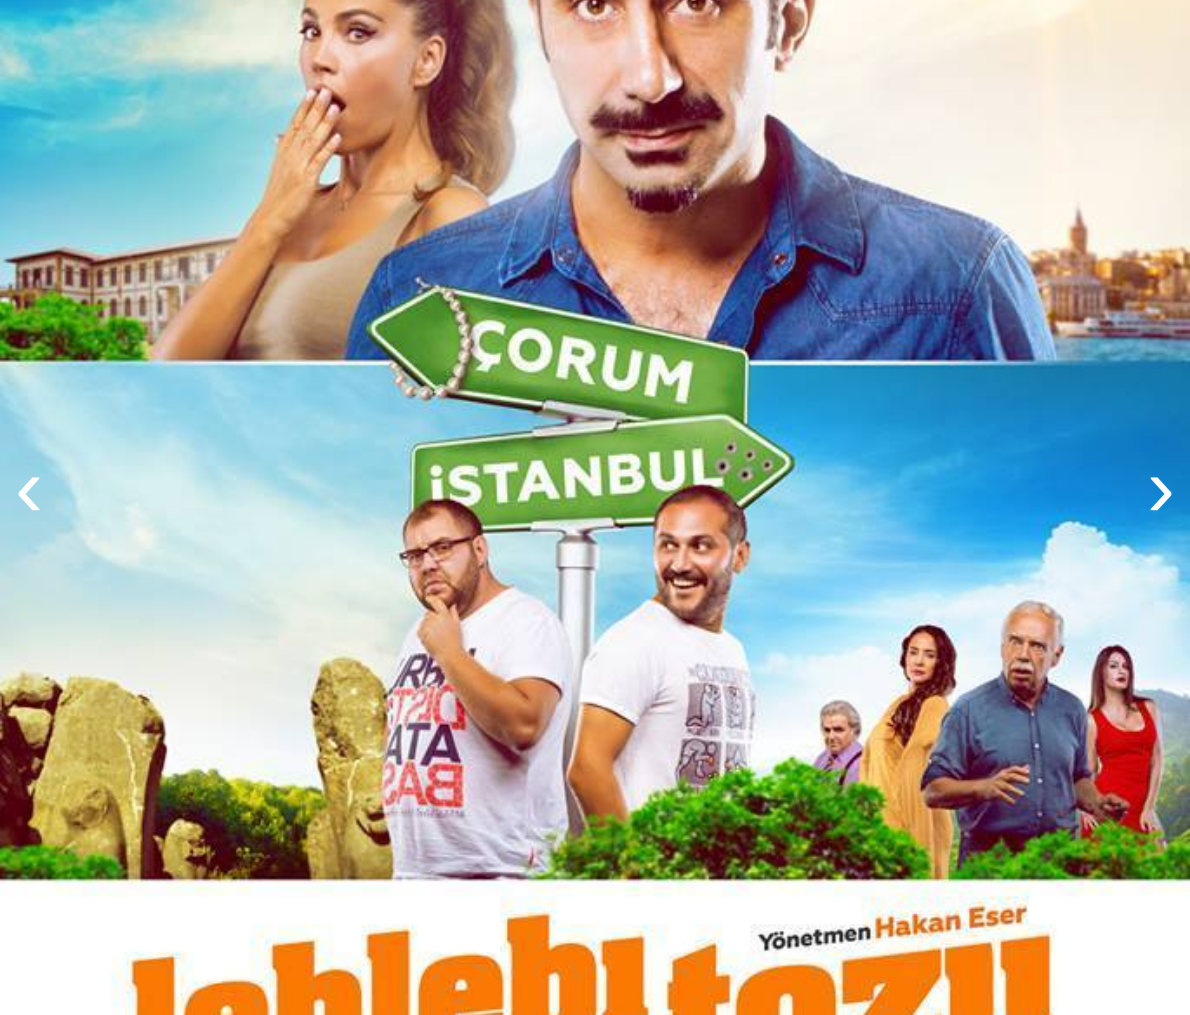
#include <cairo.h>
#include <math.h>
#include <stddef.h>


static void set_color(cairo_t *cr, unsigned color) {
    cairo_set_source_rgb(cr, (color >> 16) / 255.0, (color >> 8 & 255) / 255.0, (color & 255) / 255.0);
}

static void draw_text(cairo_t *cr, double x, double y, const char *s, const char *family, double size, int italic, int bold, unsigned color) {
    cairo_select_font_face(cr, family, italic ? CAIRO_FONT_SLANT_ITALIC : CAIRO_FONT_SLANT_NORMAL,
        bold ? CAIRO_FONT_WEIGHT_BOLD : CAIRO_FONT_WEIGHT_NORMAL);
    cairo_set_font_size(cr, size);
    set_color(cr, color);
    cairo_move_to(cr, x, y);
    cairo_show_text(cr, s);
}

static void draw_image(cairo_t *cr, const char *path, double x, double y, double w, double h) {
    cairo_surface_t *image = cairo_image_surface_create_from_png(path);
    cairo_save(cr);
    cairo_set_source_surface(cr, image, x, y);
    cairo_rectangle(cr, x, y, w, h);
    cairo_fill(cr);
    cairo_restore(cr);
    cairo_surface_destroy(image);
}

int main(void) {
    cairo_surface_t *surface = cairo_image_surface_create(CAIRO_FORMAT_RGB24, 1190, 1015);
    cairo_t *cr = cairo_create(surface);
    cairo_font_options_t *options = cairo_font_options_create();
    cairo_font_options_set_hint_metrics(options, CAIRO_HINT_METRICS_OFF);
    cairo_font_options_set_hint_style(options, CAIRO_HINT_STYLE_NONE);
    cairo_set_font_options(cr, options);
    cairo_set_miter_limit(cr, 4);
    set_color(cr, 0xFFFFFF);
    cairo_paint(cr);
    draw_image(cr, "assets/img1.png", 0, 0, 1190, 1015);
    draw_text(cr, 15, 516, "‹", "Liberation Sans", 84, 0, 0, 0xFFFFFF);
    draw_text(cr, 1147, 516, "›", "Liberation Sans", 84, 0, 0, 0xFFFFFF);
    cairo_surface_write_to_png(surface, "output.png");
    cairo_font_options_destroy(options);
    cairo_destroy(cr);
    cairo_surface_destroy(surface);
    return 0;
}
